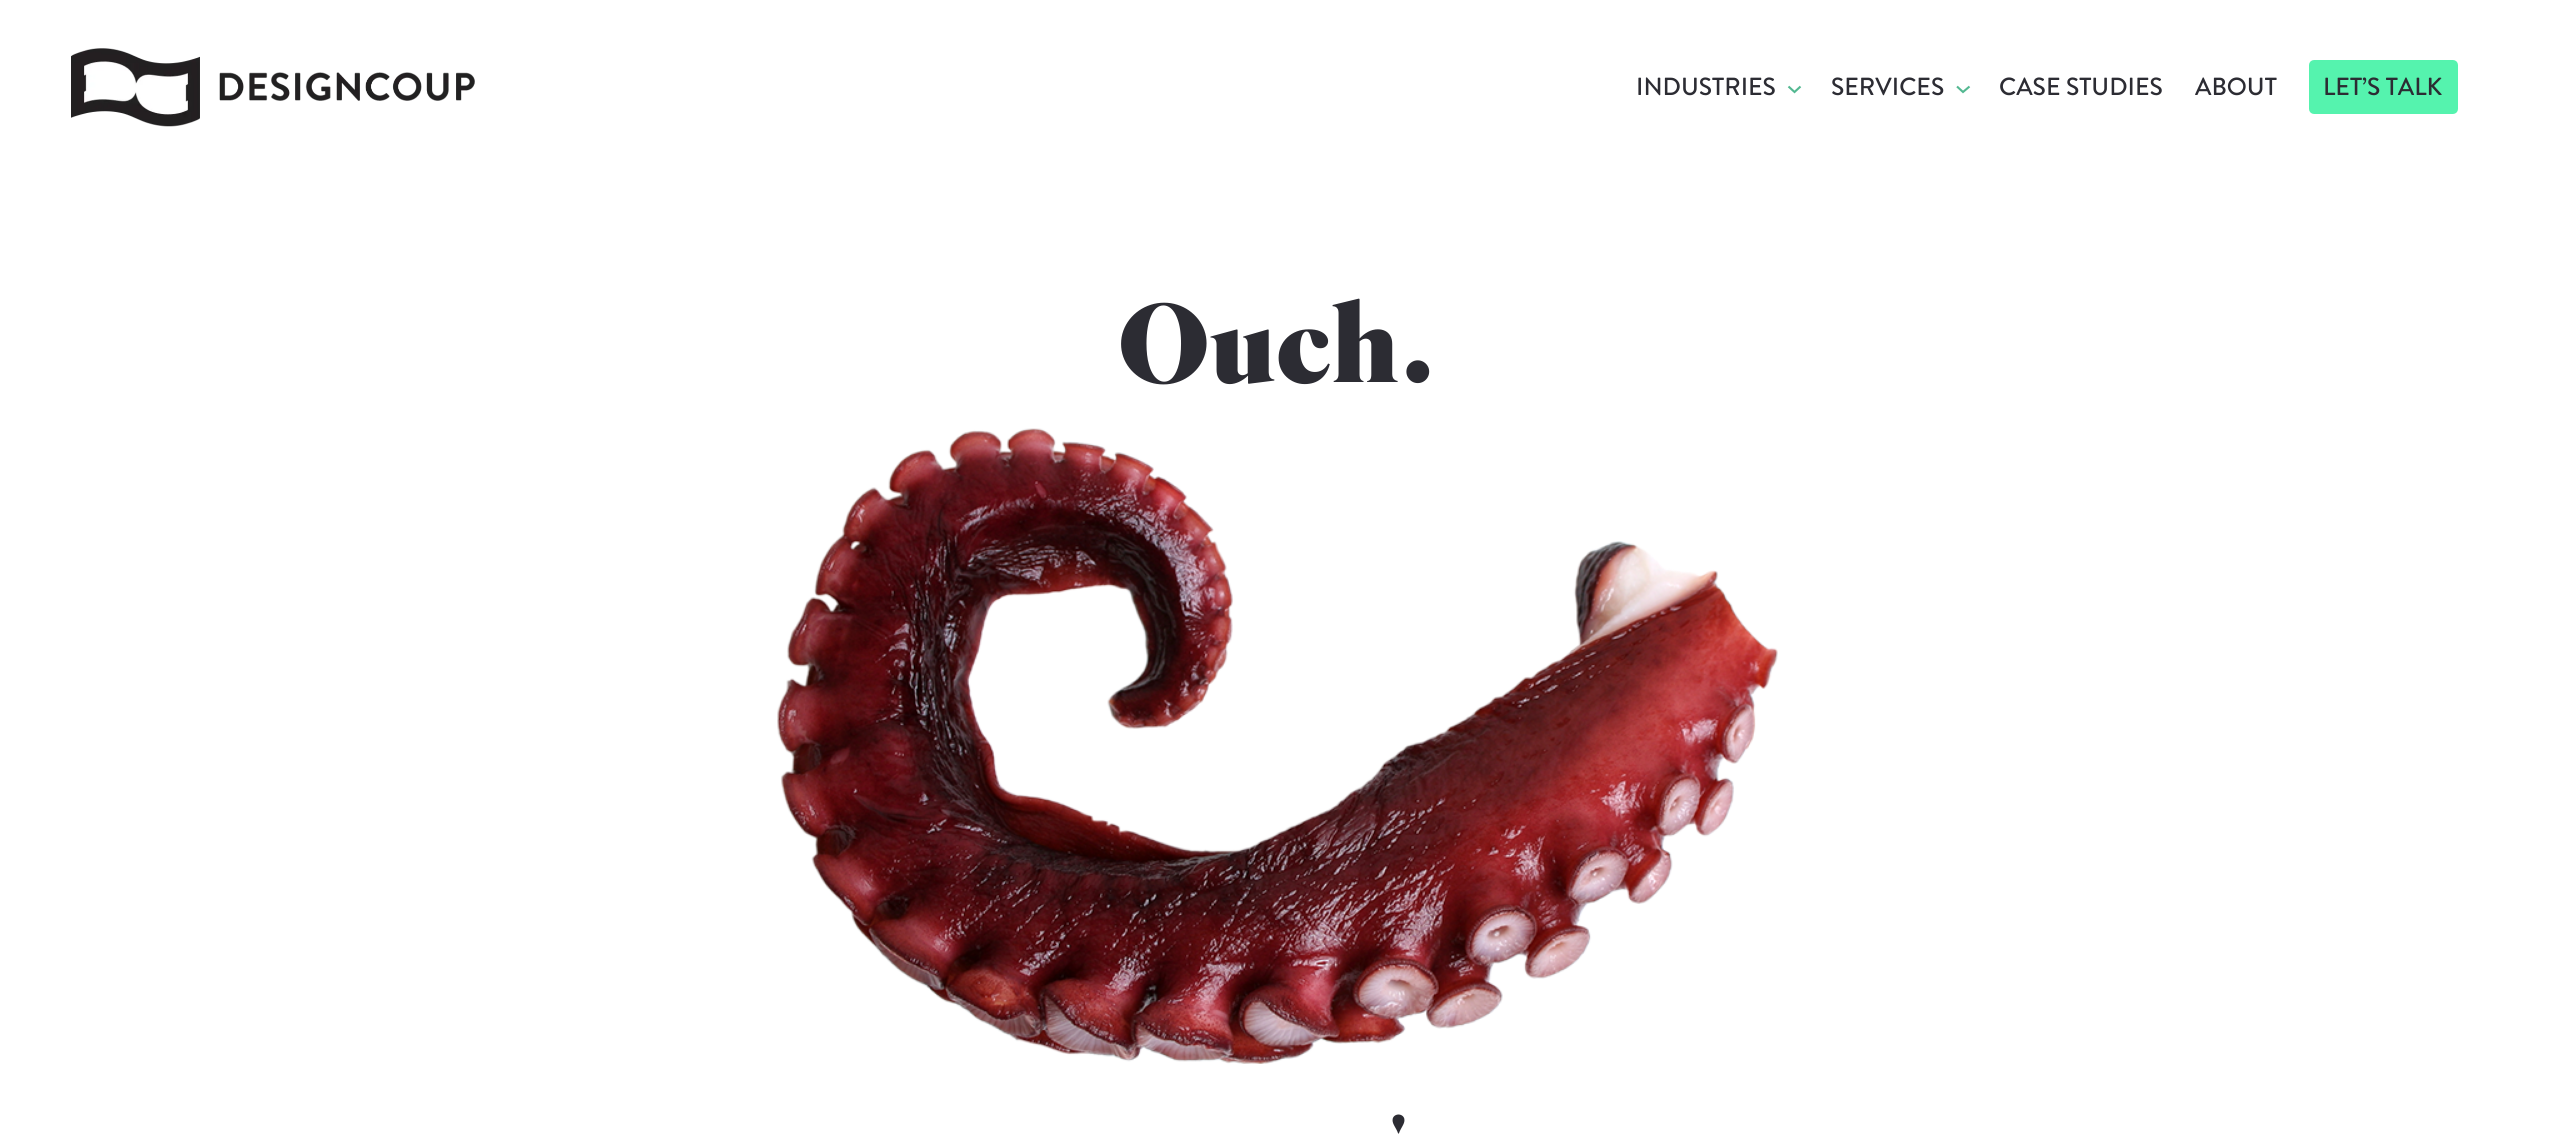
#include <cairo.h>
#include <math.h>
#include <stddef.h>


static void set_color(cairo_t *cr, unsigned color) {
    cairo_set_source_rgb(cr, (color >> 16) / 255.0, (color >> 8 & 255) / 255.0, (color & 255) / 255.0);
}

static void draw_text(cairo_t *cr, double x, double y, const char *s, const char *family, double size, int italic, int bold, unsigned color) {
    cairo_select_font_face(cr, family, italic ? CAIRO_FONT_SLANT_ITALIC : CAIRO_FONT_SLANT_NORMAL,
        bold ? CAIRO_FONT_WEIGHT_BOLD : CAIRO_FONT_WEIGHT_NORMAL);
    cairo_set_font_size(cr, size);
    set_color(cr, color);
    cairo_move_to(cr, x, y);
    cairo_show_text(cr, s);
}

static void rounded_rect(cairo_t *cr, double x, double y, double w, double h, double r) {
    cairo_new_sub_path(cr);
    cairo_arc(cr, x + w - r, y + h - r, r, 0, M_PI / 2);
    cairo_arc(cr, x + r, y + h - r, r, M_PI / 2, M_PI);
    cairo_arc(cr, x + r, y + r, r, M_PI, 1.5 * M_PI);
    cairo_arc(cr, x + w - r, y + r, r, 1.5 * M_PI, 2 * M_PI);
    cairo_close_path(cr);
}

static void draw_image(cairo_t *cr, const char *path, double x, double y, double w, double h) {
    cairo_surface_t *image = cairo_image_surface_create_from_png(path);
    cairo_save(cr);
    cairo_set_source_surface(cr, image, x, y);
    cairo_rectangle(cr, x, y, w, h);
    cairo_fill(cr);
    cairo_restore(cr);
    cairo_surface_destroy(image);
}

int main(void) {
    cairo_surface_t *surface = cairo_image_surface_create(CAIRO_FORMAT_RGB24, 2554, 1141);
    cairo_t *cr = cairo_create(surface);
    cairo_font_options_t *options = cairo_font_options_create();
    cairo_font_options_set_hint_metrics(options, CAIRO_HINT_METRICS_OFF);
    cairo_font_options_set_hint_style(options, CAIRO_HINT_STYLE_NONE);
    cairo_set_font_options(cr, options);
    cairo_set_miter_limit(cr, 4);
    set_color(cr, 0xFFFFFF);
    cairo_paint(cr);
    draw_image(cr, "assets/img1.png", 71, 48, 404, 79);
    draw_text(cr, 1636, 95, "INDUSTRIES", "Brandon Grotesque Medium", 24.75, 0, 0, 0x2C2C33);
    cairo_new_path(cr);
    cairo_move_to(cr, 1788.5, 86.5);
    cairo_line_to(cr, 1794.5, 92);
    cairo_line_to(cr, 1800.5, 86.5);
    set_color(cr, 0x53B891);
    cairo_set_line_width(cr, 2.1);
    cairo_stroke(cr);
    draw_text(cr, 1831, 95, "SERVICES", "Brandon Grotesque Medium", 24.75, 0, 0, 0x2C2C33);
    cairo_new_path(cr);
    cairo_move_to(cr, 1957, 86.5);
    cairo_line_to(cr, 1963, 92);
    cairo_line_to(cr, 1969.5, 86.5);
    set_color(cr, 0x53B891);
    cairo_stroke(cr);
    draw_text(cr, 1999, 95, "CASE STUDIES", "Brandon Grotesque Medium", 24.75, 0, 0, 0x2C2C33);
    draw_text(cr, 2195, 95, "ABOUT", "Brandon Grotesque Medium", 24.75, 0, 0, 0x2C2C33);
    set_color(cr, 0x55F3AE);
    rounded_rect(cr, 2310.5, 61.5, 146, 51, 3.5);
    cairo_fill_preserve(cr);
    cairo_set_line_width(cr, 3);
    cairo_stroke(cr);
    draw_text(cr, 2323, 95, "LET’S TALK", "Brandon Grotesque Medium", 24.75, 0, 0, 0x2C2C33);
    draw_text(cr, 1118, 382, "Ouch.", "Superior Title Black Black", 110, 0, 0, 0x2C2C33);
    draw_image(cr, "assets/img2.png", 777, 428, 1001, 636);
    draw_text(cr, 1391, 1159, "'", "Superior Title Black Black", 62, 0, 0, 0x2C2C33);
    cairo_surface_write_to_png(surface, "output.png");
    cairo_font_options_destroy(options);
    cairo_destroy(cr);
    cairo_surface_destroy(surface);
    return 0;
}
